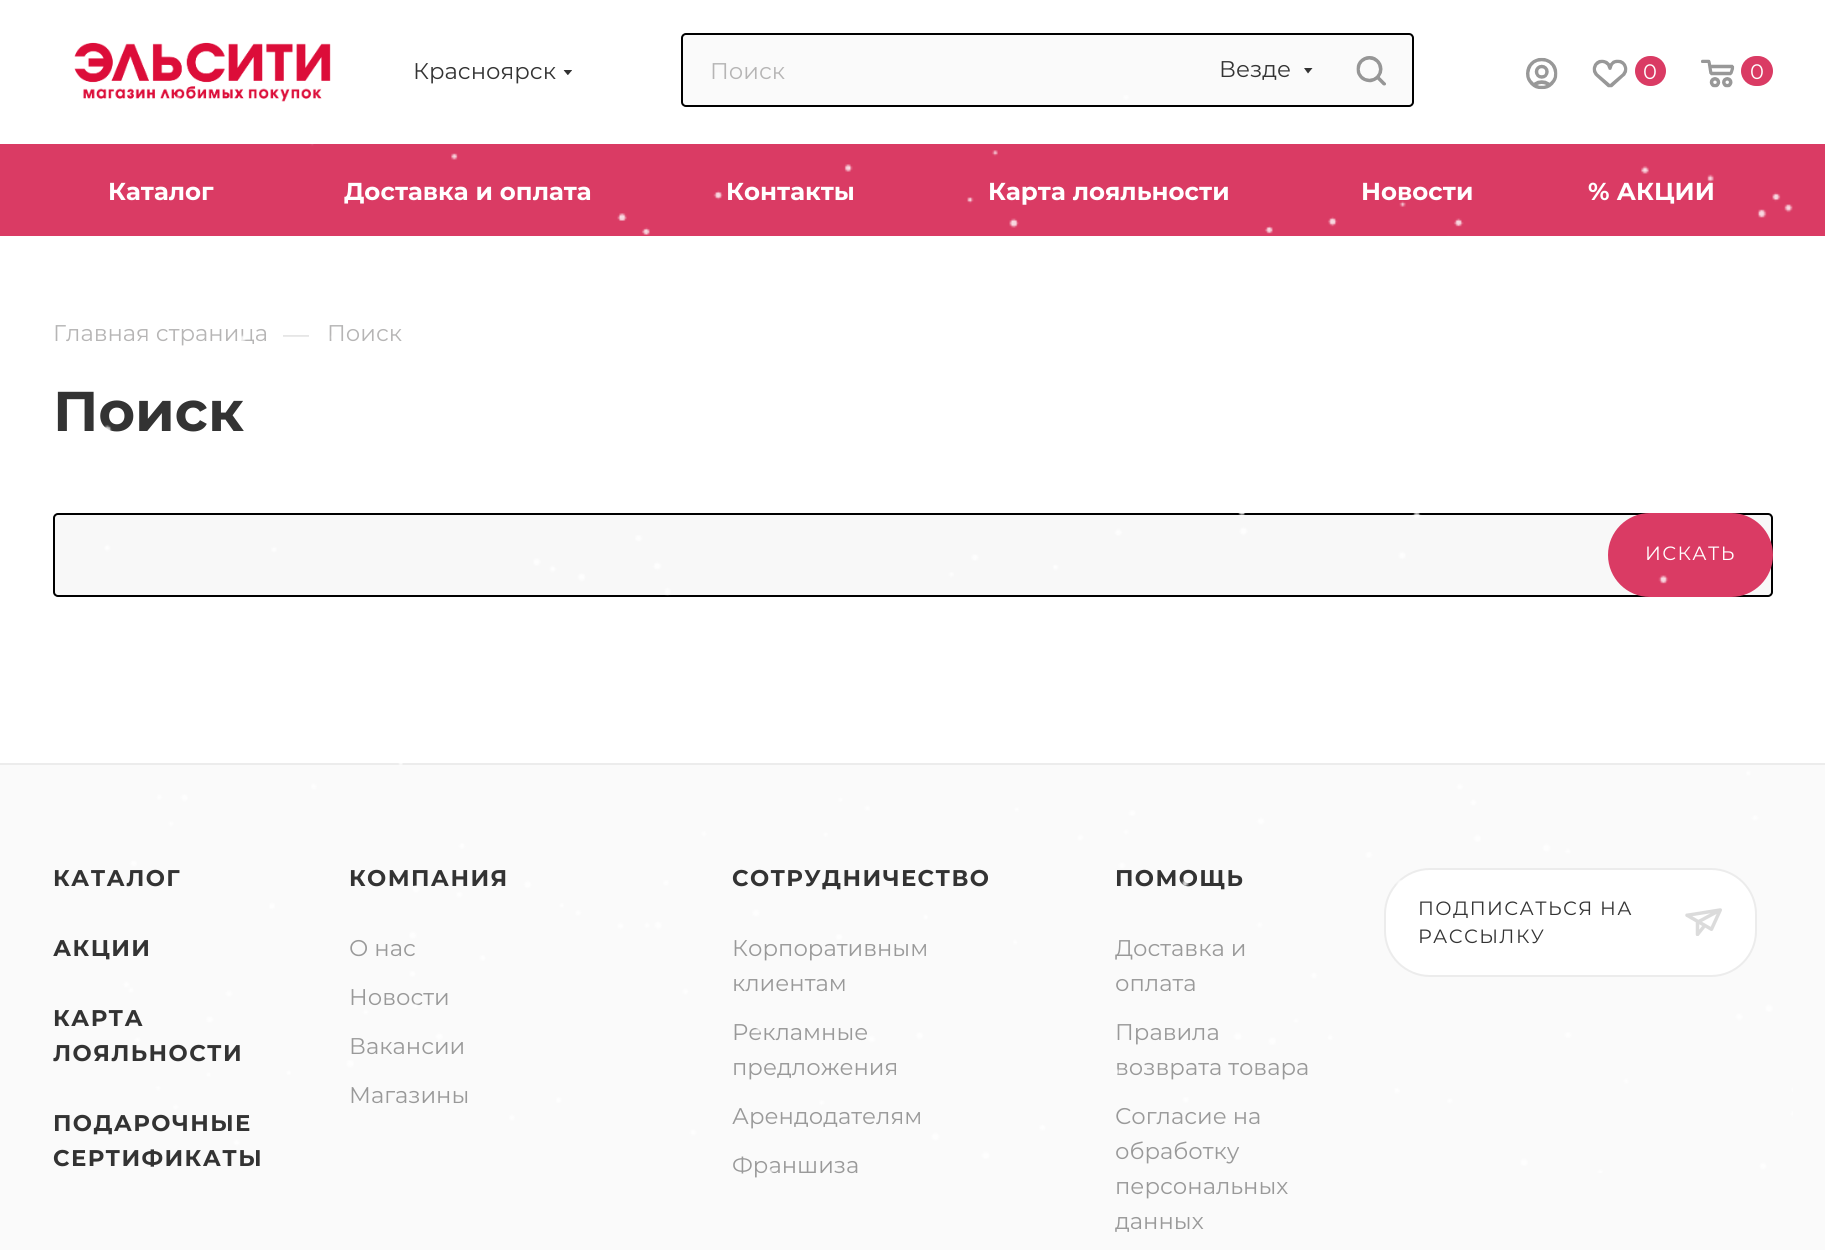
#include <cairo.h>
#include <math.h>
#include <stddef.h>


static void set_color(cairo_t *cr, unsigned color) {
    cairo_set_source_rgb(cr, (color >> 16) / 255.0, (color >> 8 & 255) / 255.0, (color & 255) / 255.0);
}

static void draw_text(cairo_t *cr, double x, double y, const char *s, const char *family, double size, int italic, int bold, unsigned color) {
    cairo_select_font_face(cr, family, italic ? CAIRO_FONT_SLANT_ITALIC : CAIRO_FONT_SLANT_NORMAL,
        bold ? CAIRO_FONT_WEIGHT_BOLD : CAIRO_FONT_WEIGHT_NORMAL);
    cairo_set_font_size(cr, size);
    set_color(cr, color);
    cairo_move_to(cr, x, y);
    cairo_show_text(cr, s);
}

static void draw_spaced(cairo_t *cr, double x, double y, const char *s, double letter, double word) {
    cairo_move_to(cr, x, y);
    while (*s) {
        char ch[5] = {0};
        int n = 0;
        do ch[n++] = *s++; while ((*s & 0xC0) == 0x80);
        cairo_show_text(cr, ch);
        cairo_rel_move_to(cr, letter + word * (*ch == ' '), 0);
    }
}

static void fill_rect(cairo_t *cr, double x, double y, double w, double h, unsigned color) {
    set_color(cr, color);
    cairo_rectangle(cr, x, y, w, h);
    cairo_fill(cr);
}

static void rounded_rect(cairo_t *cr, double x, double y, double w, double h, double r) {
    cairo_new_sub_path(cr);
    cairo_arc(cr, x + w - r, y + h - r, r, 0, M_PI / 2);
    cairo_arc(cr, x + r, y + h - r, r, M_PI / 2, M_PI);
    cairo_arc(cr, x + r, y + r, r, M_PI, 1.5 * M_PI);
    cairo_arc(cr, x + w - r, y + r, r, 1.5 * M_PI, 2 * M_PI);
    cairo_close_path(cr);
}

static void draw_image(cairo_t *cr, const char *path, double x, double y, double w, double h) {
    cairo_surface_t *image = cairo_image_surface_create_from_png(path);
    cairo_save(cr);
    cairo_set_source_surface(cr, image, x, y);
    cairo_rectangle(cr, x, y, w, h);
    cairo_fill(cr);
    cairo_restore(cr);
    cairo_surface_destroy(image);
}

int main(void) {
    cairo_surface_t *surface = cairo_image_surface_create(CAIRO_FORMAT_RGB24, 1825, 1250);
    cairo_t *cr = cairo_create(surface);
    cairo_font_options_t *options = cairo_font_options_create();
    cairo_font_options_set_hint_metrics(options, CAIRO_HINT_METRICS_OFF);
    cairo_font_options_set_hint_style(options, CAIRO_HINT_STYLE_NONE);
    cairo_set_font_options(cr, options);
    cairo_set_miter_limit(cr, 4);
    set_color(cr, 0xFFFFFF);
    cairo_paint(cr);
    draw_image(cr, "assets/img1.png", 74, 42, 257, 60);
    draw_text(cr, 413, 79, "Красноярск", "Montserrat", 22.75, 0, 0, 0x333333);
    draw_image(cr, "assets/img2.png", 563, 70, 9, 5);
    set_color(cr, 0xFAFAFA);
    rounded_rect(cr, 682, 34, 731, 72, 4);
    cairo_fill_preserve(cr);
    set_color(cr, 0x000000);
    cairo_stroke(cr);
    draw_text(cr, 710, 79, "Поиск", "Montserrat", 22.75, 0, 0, 0xB6B5B5);
    draw_text(cr, 1219, 77, "Везде", "Montserrat", 22.75, 0, 0, 0x333333);
    cairo_set_fill_rule(cr, CAIRO_FILL_RULE_EVEN_ODD);
    cairo_new_path(cr);
    cairo_move_to(cr, 1304, 68);
    cairo_line_to(cr, 1312.5, 68);
    cairo_line_to(cr, 1308, 73.5);
    cairo_close_path(cr);
    cairo_fill(cr);
    draw_image(cr, "assets/img3.png", 1356, 56, 30, 30);
    draw_image(cr, "assets/img4.png", 1526, 57, 32, 33);
    draw_image(cr, "assets/img5.png", 1592, 59, 36, 29);
    set_color(cr, 0xDA3B64);
    rounded_rect(cr, 1635, 56, 31, 30, 15);
    cairo_fill(cr);
    draw_text(cr, 1643, 79, "0", "Montserrat", 21, 0, 0, 0xFFFFFF);
    draw_image(cr, "assets/img6.png", 1701, 59, 34, 29);
    set_color(cr, 0xDA3B64);
    rounded_rect(cr, 1741, 56, 32, 30, 15);
    cairo_fill(cr);
    draw_text(cr, 1750, 79, "0", "Montserrat", 21, 0, 0, 0xFFFFFF);
    fill_rect(cr, 0, 144, 1825, 92, 0xDA3B64);
    draw_text(cr, 108, 200, "Каталог", "Montserrat", 24.5, 0, 1, 0xFFFFFF);
    draw_text(cr, 344, 200, "Доставка и оплата", "Montserrat", 24.5, 0, 1, 0xFFFFFF);
    draw_text(cr, 726, 200, "Контакты", "Montserrat", 24.5, 0, 1, 0xFFFFFF);
    draw_text(cr, 988, 200, "Карта лояльности", "Montserrat", 24.5, 0, 1, 0xFFFFFF);
    draw_text(cr, 1361, 200, "Новости", "Montserrat", 24.5, 0, 1, 0xFFFFFF);
    draw_text(cr, 1588, 200, "% АКЦИИ", "Montserrat", 24.5, 0, 1, 0xFFFFFF);
    draw_text(cr, 53, 341, "Главная страница", "Montserrat", 22.75, 0, 0, 0xB6B5B5);
    draw_text(cr, 283, 343, "—", "Montserrat", 26, 0, 0, 0xDDDDDD);
    draw_text(cr, 327, 341, "Поиск", "Montserrat", 22.75, 0, 0, 0xB6B5B5);
    draw_text(cr, 53, 431, "Поиск", "Montserrat", 56, 0, 1, 0x333333);
    set_color(cr, 0xF8F8F8);
    rounded_rect(cr, 54, 514, 1718, 82, 4);
    cairo_fill_preserve(cr);
    set_color(cr, 0x000000);
    cairo_stroke(cr);
    set_color(cr, 0xDA3B64);
    rounded_rect(cr, 1609, 514, 163, 82, 41);
    cairo_fill_preserve(cr);
    cairo_stroke(cr);
    cairo_select_font_face(cr, "Montserrat", CAIRO_FONT_SLANT_NORMAL, CAIRO_FONT_WEIGHT_NORMAL);
    cairo_set_font_size(cr, 19.25);
    set_color(cr, 0xFFFFFF);
    draw_spaced(cr, 1645, 560, "ИСКАТЬ", 1.4, 0);
    fill_rect(cr, 0, 765, 1825, 485, 0xFAFAFA);
    fill_rect(cr, 0, 763, 1825, 2, 0xECECEC);
    cairo_select_font_face(cr, "Montserrat", CAIRO_FONT_SLANT_NORMAL, CAIRO_FONT_WEIGHT_BOLD);
    cairo_set_font_size(cr, 22.75);
    set_color(cr, 0x333333);
    draw_spaced(cr, 53, 886, "КАТАЛОГ", 1.4, 0);
    draw_spaced(cr, 53, 956, "АКЦИИ", 1.4, 0);
    draw_spaced(cr, 53, 1026, "КАРТА", 1.4, 0);
    draw_spaced(cr, 53, 1061, "ЛОЯЛЬНОСТИ", 1.4, 0);
    draw_spaced(cr, 53, 1131, "ПОДАРОЧНЫЕ", 1.4, 0);
    draw_spaced(cr, 53, 1166, "СЕРТИФИКАТЫ", 1.4, 0);
    draw_spaced(cr, 349, 886, "КОМПАНИЯ", 1.4, 0);
    draw_text(cr, 349, 956, "О нас", "Montserrat", 22.75, 0, 0, 0x999999);
    draw_text(cr, 349, 1005, "Новости", "Montserrat", 22.75, 0, 0, 0x999999);
    draw_text(cr, 349, 1054, "Вакансии", "Montserrat", 22.75, 0, 0, 0x999999);
    draw_text(cr, 349, 1103, "Магазины", "Montserrat", 22.75, 0, 0, 0x999999);
    cairo_select_font_face(cr, "Montserrat", CAIRO_FONT_SLANT_NORMAL, CAIRO_FONT_WEIGHT_BOLD);
    set_color(cr, 0x333333);
    draw_spaced(cr, 732, 886, "СОТРУДНИЧЕСТВО", 1.4, 0);
    draw_text(cr, 732, 956, "Корпоративным", "Montserrat", 22.75, 0, 0, 0x999999);
    draw_text(cr, 732, 991, "клиентам", "Montserrat", 22.75, 0, 0, 0x999999);
    draw_text(cr, 732, 1040, "Рекламные", "Montserrat", 22.75, 0, 0, 0x999999);
    draw_text(cr, 732, 1075, "предложения", "Montserrat", 22.75, 0, 0, 0x999999);
    draw_text(cr, 732, 1124, "Арендодателям", "Montserrat", 22.75, 0, 0, 0x999999);
    draw_text(cr, 732, 1173, "Франшиза", "Montserrat", 22.75, 0, 0, 0x999999);
    cairo_select_font_face(cr, "Montserrat", CAIRO_FONT_SLANT_NORMAL, CAIRO_FONT_WEIGHT_BOLD);
    set_color(cr, 0x333333);
    draw_spaced(cr, 1115, 886, "ПОМОЩЬ", 1.4, 0);
    draw_text(cr, 1115, 956, "Доставка и", "Montserrat", 22.75, 0, 0, 0x999999);
    draw_text(cr, 1115, 991, "оплата", "Montserrat", 22.75, 0, 0, 0x999999);
    draw_text(cr, 1115, 1040, "Правила", "Montserrat", 22.75, 0, 0, 0x999999);
    draw_text(cr, 1115, 1075, "возврата товара", "Montserrat", 22.75, 0, 0, 0x999999);
    draw_text(cr, 1115, 1124, "Согласие на", "Montserrat", 22.75, 0, 0, 0x999999);
    draw_text(cr, 1115, 1159, "обработку", "Montserrat", 22.75, 0, 0, 0x999999);
    set_color(cr, 0xFFFFFF);
    rounded_rect(cr, 1385, 869, 371, 107, 45);
    cairo_fill_preserve(cr);
    set_color(cr, 0xECECEC);
    cairo_stroke(cr);
    cairo_set_font_size(cr, 19.25);
    set_color(cr, 0x333333);
    draw_spaced(cr, 1418, 915, "ПОДПИСАТЬСЯ НА", 1.4, 0);
    draw_image(cr, "assets/img8.png", 1685, 908, 37, 28);
    draw_spaced(cr, 1418, 943, "РАССЫЛКУ", 1.4, 0);
    draw_image(cr, "assets/img7.png", 104, 95, 1689, 1078);
    draw_text(cr, 1115, 1194, "персональных", "Montserrat", 22.75, 0, 0, 0x999999);
    draw_text(cr, 1115, 1229, "данных", "Montserrat", 22.75, 0, 0, 0x999999);
    cairo_surface_write_to_png(surface, "output.png");
    cairo_font_options_destroy(options);
    cairo_destroy(cr);
    cairo_surface_destroy(surface);
    return 0;
}
